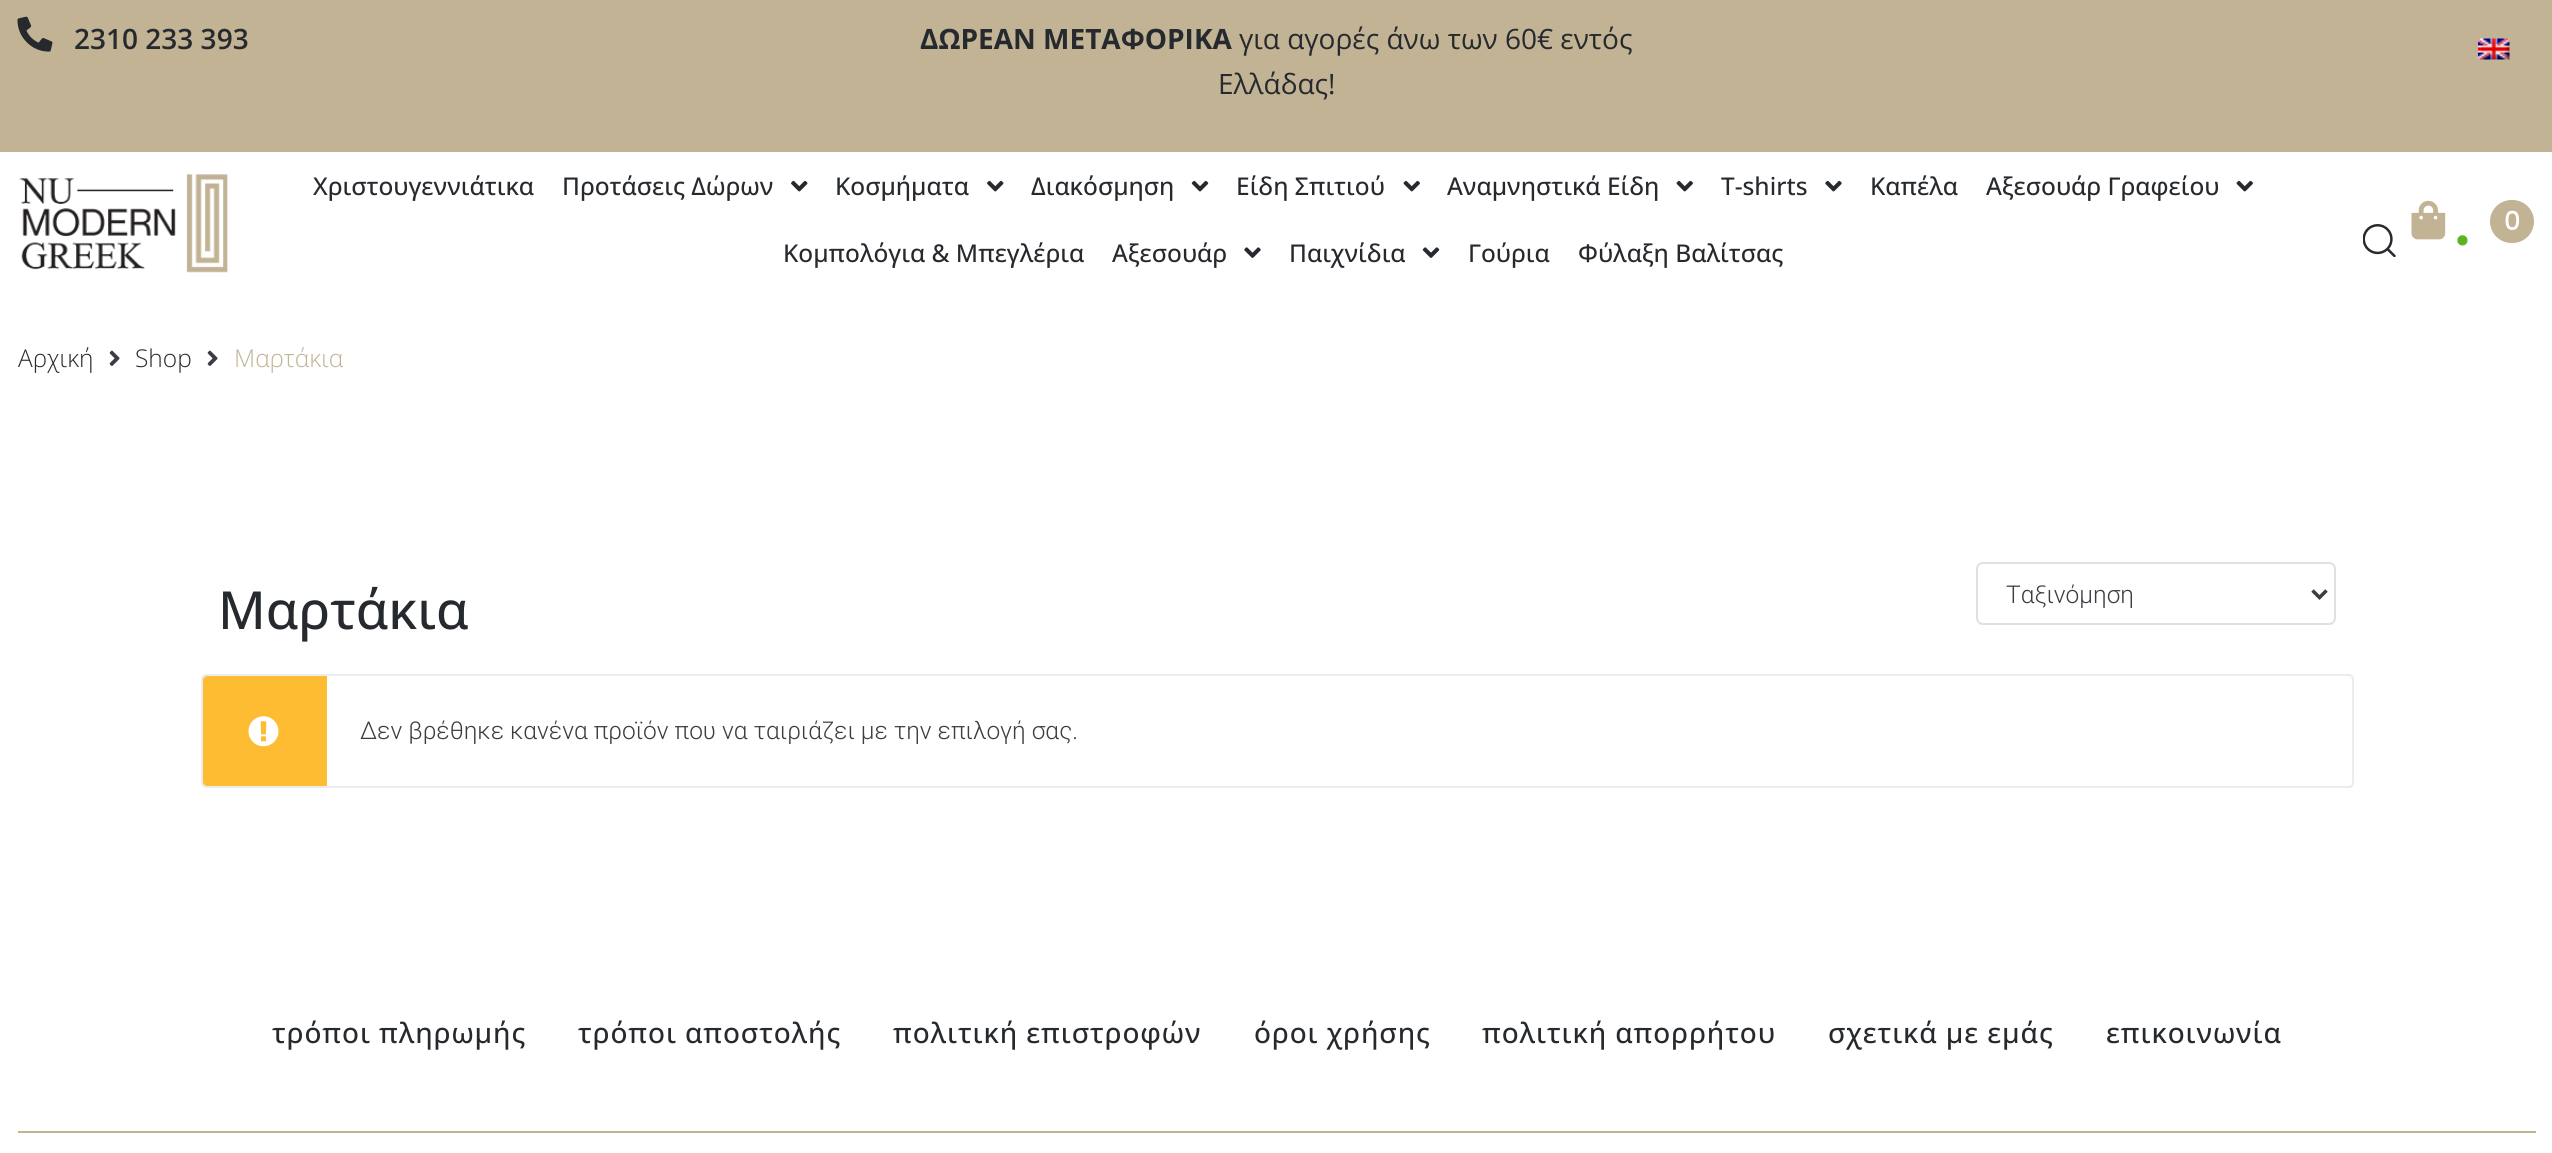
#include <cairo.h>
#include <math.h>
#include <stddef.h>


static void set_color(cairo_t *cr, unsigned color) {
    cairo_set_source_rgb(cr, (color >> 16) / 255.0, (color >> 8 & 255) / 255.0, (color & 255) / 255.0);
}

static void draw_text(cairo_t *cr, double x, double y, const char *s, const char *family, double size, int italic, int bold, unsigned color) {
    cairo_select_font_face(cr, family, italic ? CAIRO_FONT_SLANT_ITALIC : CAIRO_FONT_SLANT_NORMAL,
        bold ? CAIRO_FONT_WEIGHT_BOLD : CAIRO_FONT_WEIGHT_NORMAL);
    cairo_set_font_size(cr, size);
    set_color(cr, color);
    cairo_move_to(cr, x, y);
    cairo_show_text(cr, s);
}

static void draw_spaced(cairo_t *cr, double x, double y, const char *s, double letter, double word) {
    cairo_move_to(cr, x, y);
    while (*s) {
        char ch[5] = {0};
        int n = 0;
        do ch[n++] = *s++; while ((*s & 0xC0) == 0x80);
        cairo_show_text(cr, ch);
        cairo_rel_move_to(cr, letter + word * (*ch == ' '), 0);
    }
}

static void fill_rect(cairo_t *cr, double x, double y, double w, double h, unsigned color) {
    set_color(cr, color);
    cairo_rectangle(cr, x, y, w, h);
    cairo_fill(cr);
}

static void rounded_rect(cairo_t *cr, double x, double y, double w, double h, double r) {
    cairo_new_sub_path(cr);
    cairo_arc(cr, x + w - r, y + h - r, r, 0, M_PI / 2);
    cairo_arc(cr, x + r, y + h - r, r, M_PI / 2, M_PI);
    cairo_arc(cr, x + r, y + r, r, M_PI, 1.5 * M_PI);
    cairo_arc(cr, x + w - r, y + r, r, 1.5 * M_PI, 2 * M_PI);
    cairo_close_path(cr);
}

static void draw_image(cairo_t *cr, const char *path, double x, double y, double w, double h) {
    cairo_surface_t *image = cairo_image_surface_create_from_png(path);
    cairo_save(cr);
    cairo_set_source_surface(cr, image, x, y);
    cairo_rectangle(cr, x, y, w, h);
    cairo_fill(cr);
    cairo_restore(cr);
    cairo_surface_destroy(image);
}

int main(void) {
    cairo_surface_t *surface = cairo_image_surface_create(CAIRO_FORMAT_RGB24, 2552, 1153);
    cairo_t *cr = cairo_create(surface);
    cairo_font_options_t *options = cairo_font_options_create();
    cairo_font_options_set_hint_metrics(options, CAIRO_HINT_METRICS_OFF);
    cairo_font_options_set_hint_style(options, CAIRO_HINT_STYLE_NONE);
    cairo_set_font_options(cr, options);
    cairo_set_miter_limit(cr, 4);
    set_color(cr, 0xFFFFFF);
    cairo_paint(cr);
    fill_rect(cr, 0, 0, 2552, 152, 0xC1B394);
    draw_image(cr, "assets/img1.png", 17, 16, 36, 36);
    draw_text(cr, 74, 49, "2310 233 393", "Open Sans SemiBold", 28, 0, 0, 0x262A2E);
    draw_text(cr, 920, 49, "ΔΩΡΕΑΝ ΜΕΤΑΦΟΡΙΚΑ", "Open Sans", 28, 0, 1, 0x262A2E);
    draw_text(cr, 1239, 49, "για αγορές άνω των 60€ εντός", "Open Sans", 28, 0, 0, 0x262A2E);
    draw_text(cr, 1218, 94, "Ελλάδας!", "Open Sans", 28, 0, 0, 0x262A2E);
    draw_image(cr, "assets/img2.png", 2478, 38, 32, 22);
    draw_image(cr, "assets/img3.png", 19, 174, 209, 99);
    draw_text(cr, 313, 195, "Χριστουγεννιάτικα", "Open Sans Medium", 24.5, 0, 0, 0x262A2E);
    draw_text(cr, 562, 195, "Προτάσεις Δώρων", "Open Sans Medium", 24.5, 0, 0, 0x262A2E);
    draw_image(cr, "assets/img4.png", 791, 180, 17, 12);
    draw_text(cr, 835, 195, "Κοσμήματα", "Open Sans Medium", 24.5, 0, 0, 0x262A2E);
    draw_image(cr, "assets/img4.png", 987, 180, 17, 12);
    draw_text(cr, 1031, 195, "Διακόσμηση", "Open Sans Medium", 24.5, 0, 0, 0x262A2E);
    draw_image(cr, "assets/img5.png", 1191, 180, 18, 12);
    draw_text(cr, 1236, 195, "Είδη Σπιτιού", "Open Sans Medium", 24.5, 0, 0, 0x262A2E);
    draw_image(cr, "assets/img6.png", 1403, 180, 17, 12);
    draw_text(cr, 1447, 195, "Αναμνηστικά Είδη", "Open Sans Medium", 24.5, 0, 0, 0x262A2E);
    draw_image(cr, "assets/img6.png", 1676, 180, 17, 12);
    draw_text(cr, 1721, 195, "T-shirts", "Open Sans Medium", 24.5, 0, 0, 0x262A2E);
    draw_image(cr, "assets/img7.png", 1825, 180, 17, 12);
    draw_text(cr, 1870, 195, "Καπέλα", "Open Sans Medium", 24.5, 0, 0, 0x262A2E);
    draw_text(cr, 1986, 195, "Αξεσουάρ Γραφείου", "Open Sans Medium", 24.5, 0, 0, 0x262A2E);
    draw_image(cr, "assets/img6.png", 2236, 180, 17, 12);
    draw_text(cr, 783, 262, "Κομπολόγια & Μπεγλέρια", "Open Sans Medium", 24.5, 0, 0, 0x262A2E);
    draw_text(cr, 1112, 262, "Αξεσουάρ", "Open Sans Medium", 24.5, 0, 0, 0x262A2E);
    draw_image(cr, "assets/img8.png", 1244, 247, 17, 11);
    draw_text(cr, 1289, 262, "Παιχνίδια", "Open Sans Medium", 24.5, 0, 0, 0x262A2E);
    draw_image(cr, "assets/img9.png", 1422, 247, 18, 11);
    draw_text(cr, 1468, 262, "Γούρια", "Open Sans Medium", 24.5, 0, 0, 0x262A2E);
    draw_text(cr, 1578, 262, "Φύλαξη Βαλίτσας", "Open Sans Medium", 24.5, 0, 0, 0x262A2E);
    draw_image(cr, "assets/img10.png", 2363, 224, 33, 33);
    draw_image(cr, "assets/img11.png", 2411, 200, 35, 40);
    set_color(cr, 0xC1B394);
    rounded_rect(cr, 2490, 200, 44, 43, 21.5);
    cairo_fill(cr);
    cairo_select_font_face(cr, "Poppins Medium", CAIRO_FONT_SLANT_NORMAL, CAIRO_FONT_WEIGHT_NORMAL);
    cairo_set_font_size(cr, 26);
    set_color(cr, 0xFFFFFF);
    draw_spaced(cr, 2504, 230, "0", 1, 0);
    cairo_set_font_size(cr, 70);
    set_color(cr, 0x5CB424);
    draw_spaced(cr, 2454, 245, ".", 1, 0);
    draw_text(cr, 18, 367, "Αρχική", "Open Sans Light", 24.5, 0, 0, 0x262A2E);
    draw_image(cr, "assets/img12.png", 109, 350, 11, 16);
    draw_text(cr, 135, 367, "Shop", "Open Sans Light", 24.5, 0, 0, 0x262A2E);
    draw_image(cr, "assets/img12.png", 207, 350, 11, 16);
    draw_text(cr, 234, 367, "Μαρτάκια", "Open Sans Light", 24.5, 0, 0, 0xC1B394);
    draw_text(cr, 218, 629, "Μαρτάκια", "Open Sans Medium", 52.5, 0, 0, 0x262A2E);
    rounded_rect(cr, 1977, 563, 358, 61, 6);
    set_color(cr, 0xE0E0E0);
    cairo_stroke(cr);
    cairo_new_path(cr);
    cairo_move_to(cr, 2312.5, 590.5);
    cairo_line_to(cr, 2319.5, 597.5);
    cairo_line_to(cr, 2326.5, 590.5);
    set_color(cr, 0x3B3D42);
    cairo_set_line_width(cr, 3.5);
    cairo_stroke(cr);
    draw_text(cr, 2006, 603, "Ταξινόμηση", "Roboto Light", 24.5, 0, 0, 0x3B3D42);
    rounded_rect(cr, 202, 675, 2151, 112, 4);
    set_color(cr, 0xEBECED);
    cairo_set_line_width(cr, 2);
    cairo_stroke(cr);
    cairo_save(cr);
    rounded_rect(cr, 203, 676, 2149, 110, 4);
    cairo_clip(cr);
    set_color(cr, 0xFDBC32);
    cairo_new_path(cr);
    cairo_move_to(cr, 206, 674);
    cairo_line_to(cr, 327, 674);
    cairo_line_to(cr, 327, 788);
    cairo_line_to(cr, 206, 788);
    cairo_curve_to(cr, 203, 788, 201, 786, 201, 783);
    cairo_line_to(cr, 201, 679);
    cairo_curve_to(cr, 201, 676, 203, 674, 206, 674);
    cairo_close_path(cr);
    cairo_fill(cr);
    cairo_restore(cr);
    draw_image(cr, "assets/img13.png", 248, 716, 31, 31);
    draw_text(cr, 360, 739, "Δεν βρέθηκε κανένα προϊόν που να ταιριάζει με την επιλογή σας.", "Roboto Light", 24.5, 0, 0, 0x3B3D42);
    cairo_select_font_face(cr, "Open Sans Medium", CAIRO_FONT_SLANT_NORMAL, CAIRO_FONT_WEIGHT_NORMAL);
    cairo_set_font_size(cr, 28);
    set_color(cr, 0x262A2E);
    draw_spaced(cr, 272, 1043, "τρόποι πληρωμής", 0.9, 0);
    draw_spaced(cr, 578, 1043, "τρόποι αποστολής", 0.9, 0);
    draw_spaced(cr, 893, 1043, "πολιτική επιστροφών", 0.9, 0);
    draw_spaced(cr, 1254, 1043, "όροι χρήσης", 0.9, 0);
    draw_spaced(cr, 1482, 1043, "πολιτική απορρήτου", 0.9, 0);
    draw_spaced(cr, 1828, 1043, "σχετικά με εμάς", 0.9, 0);
    draw_spaced(cr, 2106, 1043, "επικοινωνία", 0.9, 0);
    fill_rect(cr, 18, 1131, 2518, 2, 0xC1B394);
    cairo_surface_write_to_png(surface, "output.png");
    cairo_font_options_destroy(options);
    cairo_destroy(cr);
    cairo_surface_destroy(surface);
    return 0;
}
